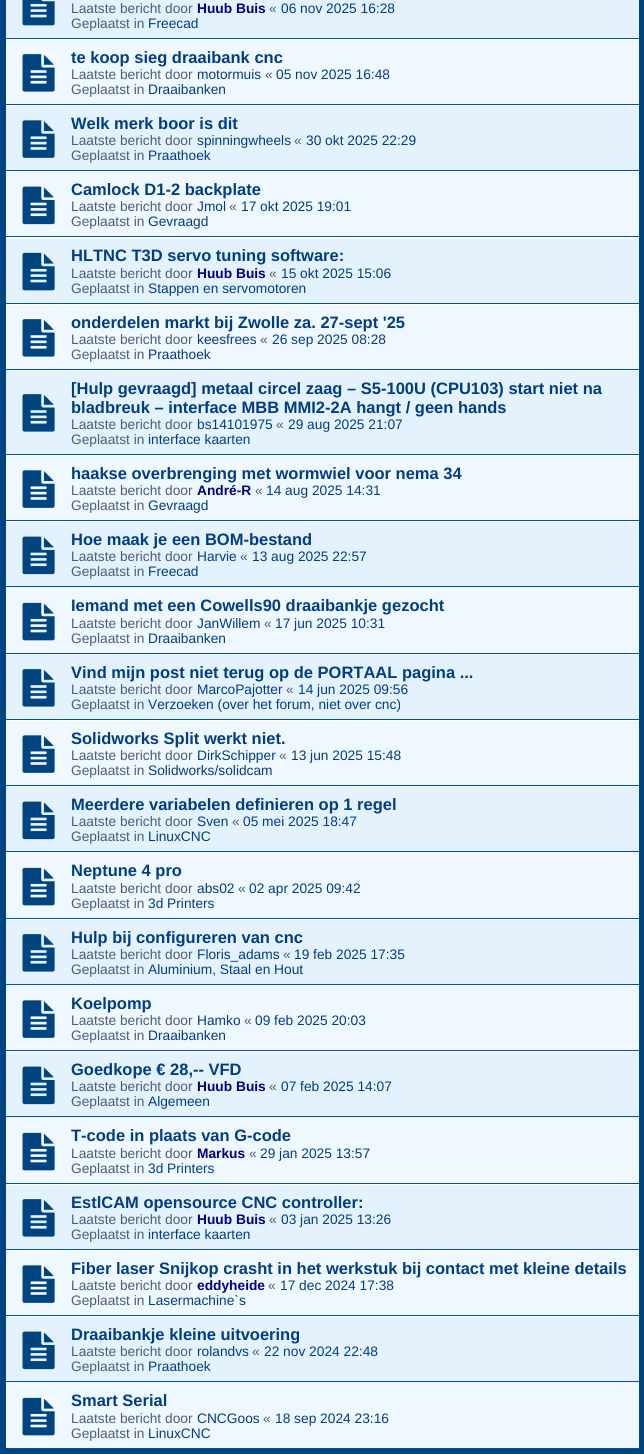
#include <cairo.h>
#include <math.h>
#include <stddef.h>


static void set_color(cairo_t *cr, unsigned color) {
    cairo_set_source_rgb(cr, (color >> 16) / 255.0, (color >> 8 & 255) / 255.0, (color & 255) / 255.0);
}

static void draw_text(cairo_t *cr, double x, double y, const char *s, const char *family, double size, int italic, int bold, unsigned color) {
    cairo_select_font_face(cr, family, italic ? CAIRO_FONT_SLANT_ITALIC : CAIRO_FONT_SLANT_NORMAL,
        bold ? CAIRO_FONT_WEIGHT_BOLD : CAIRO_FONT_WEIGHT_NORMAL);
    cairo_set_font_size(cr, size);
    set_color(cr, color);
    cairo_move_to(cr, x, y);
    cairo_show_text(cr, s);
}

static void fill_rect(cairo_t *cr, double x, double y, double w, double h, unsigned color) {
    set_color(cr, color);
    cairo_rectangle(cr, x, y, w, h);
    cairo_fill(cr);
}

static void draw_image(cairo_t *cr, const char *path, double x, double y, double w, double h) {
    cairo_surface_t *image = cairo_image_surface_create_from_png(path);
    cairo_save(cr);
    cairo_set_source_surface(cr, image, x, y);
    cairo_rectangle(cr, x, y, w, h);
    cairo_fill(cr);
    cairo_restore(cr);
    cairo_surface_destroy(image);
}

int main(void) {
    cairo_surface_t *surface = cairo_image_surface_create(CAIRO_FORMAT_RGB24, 644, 1454);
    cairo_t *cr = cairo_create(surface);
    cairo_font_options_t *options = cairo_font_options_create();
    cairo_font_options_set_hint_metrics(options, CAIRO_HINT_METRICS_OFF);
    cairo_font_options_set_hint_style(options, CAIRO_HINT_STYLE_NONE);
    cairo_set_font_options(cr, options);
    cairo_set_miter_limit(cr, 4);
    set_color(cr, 0x004480);
    cairo_paint(cr);
    fill_rect(cr, 6, 0, 633, 38, 0xE3F2FD);
    fill_rect(cr, 6, 38, 633, 1, 0x0051A8);
    draw_image(cr, "assets/img1.png", 22, 0, 33, 26);
    draw_text(cr, 71, 13, "Laatste bericht door", "Liberation Sans", 13.75, 0, 0, 0x4C5D77);
    draw_text(cr, 197, 13, "Huub Buis", "Liberation Sans", 13.75, 0, 1, 0x000080);
    draw_text(cr, 269, 13, "«", "Liberation Sans", 13.75, 0, 0, 0x4C5D77);
    draw_text(cr, 281, 13, "06 nov 2025 16:28", "Liberation Sans", 13.75, 0, 0, 0x003D82);
    draw_text(cr, 71, 28, "Geplaatst in", "Liberation Sans", 13.75, 0, 0, 0x4C5D77);
    draw_text(cr, 148, 28, "Freecad", "Liberation Sans", 13.75, 0, 0, 0x003D82);
    fill_rect(cr, 6, 40, 633, 64, 0xF0F8FF);
    fill_rect(cr, 6, 39, 633, 1, 0xFFFFFF);
    fill_rect(cr, 6, 104, 633, 1, 0x0051A8);
    draw_image(cr, "assets/img2.png", 22, 54, 33, 38);
    draw_text(cr, 71, 63, "te koop sieg draaibank cnc", "Liberation Sans", 16.5, 0, 1, 0x003D82);
    draw_text(cr, 71, 79, "Laatste bericht door", "Liberation Sans", 13.75, 0, 0, 0x4C5D77);
    draw_text(cr, 197, 79, "motormuis", "Liberation Sans", 13.75, 0, 0, 0x003D82);
    draw_text(cr, 265, 79, "«", "Liberation Sans", 13.75, 0, 0, 0x4C5D77);
    draw_text(cr, 276, 79, "05 nov 2025 16:48", "Liberation Sans", 13.75, 0, 0, 0x003D82);
    draw_text(cr, 71, 94, "Geplaatst in", "Liberation Sans", 13.75, 0, 0, 0x4C5D77);
    draw_text(cr, 148, 94, "Draaibanken", "Liberation Sans", 13.75, 0, 0, 0x003D82);
    fill_rect(cr, 6, 106, 633, 64, 0xE3F2FD);
    fill_rect(cr, 6, 105, 633, 1, 0xFFFFFF);
    fill_rect(cr, 6, 170, 633, 1, 0x0051A8);
    draw_image(cr, "assets/img3.png", 22, 120, 33, 38);
    draw_text(cr, 71, 129, "Welk merk boor is dit", "Liberation Sans", 16.5, 0, 1, 0x003D82);
    draw_text(cr, 71, 145, "Laatste bericht door", "Liberation Sans", 13.75, 0, 0, 0x4C5D77);
    draw_text(cr, 197, 145, "spinningwheels", "Liberation Sans", 13.75, 0, 0, 0x003D82);
    draw_text(cr, 294, 145, "«", "Liberation Sans", 13.75, 0, 0, 0x4C5D77);
    draw_text(cr, 306, 145, "30 okt 2025 22:29", "Liberation Sans", 13.75, 0, 0, 0x003D82);
    draw_text(cr, 71, 160, "Geplaatst in", "Liberation Sans", 13.75, 0, 0, 0x4C5D77);
    draw_text(cr, 148, 160, "Praathoek", "Liberation Sans", 13.75, 0, 0, 0x003D82);
    fill_rect(cr, 6, 172, 633, 66, 0xF0F8FF);
    fill_rect(cr, 6, 171, 633, 1, 0xFFFFFF);
    fill_rect(cr, 6, 236, 633, 1, 0x0051A8);
    draw_image(cr, "assets/img4.png", 22, 186, 33, 39);
    draw_text(cr, 71, 195, "Camlock D1-2 backplate", "Liberation Sans", 16.5, 0, 1, 0x003D82);
    draw_text(cr, 71, 211, "Laatste bericht door", "Liberation Sans", 13.75, 0, 0, 0x4C5D77);
    draw_text(cr, 197, 211, "Jmol", "Liberation Sans", 13.75, 0, 0, 0x003D82);
    draw_text(cr, 229, 211, "«", "Liberation Sans", 13.75, 0, 0, 0x4C5D77);
    draw_text(cr, 241, 211, "17 okt 2025 19:01", "Liberation Sans", 13.75, 0, 0, 0x003D82);
    draw_text(cr, 71, 226, "Geplaatst in", "Liberation Sans", 13.75, 0, 0, 0x4C5D77);
    draw_text(cr, 148, 226, "Gevraagd", "Liberation Sans", 13.75, 0, 0, 0x003D82);
    fill_rect(cr, 6, 239, 633, 64, 0xE3F2FD);
    fill_rect(cr, 6, 238, 633, 1, 0xFFFFFF);
    fill_rect(cr, 6, 303, 633, 1, 0x0051A8);
    draw_image(cr, "assets/img5.png", 22, 252, 33, 39);
    draw_text(cr, 71, 261, "HLTNC T3D servo tuning software:", "Liberation Sans", 16.5, 0, 1, 0x003D82);
    draw_text(cr, 71, 278, "Laatste bericht door", "Liberation Sans", 13.75, 0, 0, 0x4C5D77);
    draw_text(cr, 197, 278, "Huub Buis", "Liberation Sans", 13.75, 0, 1, 0x000080);
    draw_text(cr, 269, 278, "«", "Liberation Sans", 13.75, 0, 0, 0x4C5D77);
    draw_text(cr, 281, 278, "15 okt 2025 15:06", "Liberation Sans", 13.75, 0, 0, 0x003D82);
    draw_text(cr, 71, 293, "Geplaatst in", "Liberation Sans", 13.75, 0, 0, 0x4C5D77);
    draw_text(cr, 148, 293, "Stappen en servomotoren", "Liberation Sans", 13.75, 0, 0, 0x003D82);
    fill_rect(cr, 6, 305, 633, 64, 0xF0F8FF);
    fill_rect(cr, 6, 304, 633, 1, 0xFFFFFF);
    fill_rect(cr, 6, 369, 633, 1, 0x0051A8);
    draw_image(cr, "assets/img2.png", 22, 319, 33, 38);
    draw_text(cr, 71, 328, "onderdelen markt bij Zwolle za. 27-sept '25", "Liberation Sans", 16.5, 0, 1, 0x003D82);
    draw_text(cr, 71, 344, "Laatste bericht door", "Liberation Sans", 13.75, 0, 0, 0x4C5D77);
    draw_text(cr, 197, 344, "keesfrees", "Liberation Sans", 13.75, 0, 0, 0x003D82);
    draw_text(cr, 260, 344, "«", "Liberation Sans", 13.75, 0, 0, 0x4C5D77);
    draw_text(cr, 272, 344, "26 sep 2025 08:28", "Liberation Sans", 13.75, 0, 0, 0x003D82);
    draw_text(cr, 71, 359, "Geplaatst in", "Liberation Sans", 13.75, 0, 0, 0x4C5D77);
    draw_text(cr, 148, 359, "Praathoek", "Liberation Sans", 13.75, 0, 0, 0x003D82);
    fill_rect(cr, 6, 371, 633, 83, 0xE3F2FD);
    fill_rect(cr, 6, 370, 633, 1, 0xFFFFFF);
    fill_rect(cr, 6, 454, 633, 1, 0x0051A8);
    draw_image(cr, "assets/img6.png", 22, 394, 33, 38);
    draw_text(cr, 71, 394, "[Hulp gevraagd] metaal circel zaag – S5-100U (CPU103) start niet na", "Liberation Sans", 16.5, 0, 1, 0x003D82);
    draw_text(cr, 71, 413, "bladbreuk – interface MBB MMI2-2A hangt / geen hands", "Liberation Sans", 16.5, 0, 1, 0x003D82);
    draw_text(cr, 71, 429, "Laatste bericht door", "Liberation Sans", 13.75, 0, 0, 0x4C5D77);
    draw_text(cr, 197, 429, "bs14101975", "Liberation Sans", 13.75, 0, 0, 0x003D82);
    draw_text(cr, 276, 429, "«", "Liberation Sans", 13.75, 0, 0, 0x4C5D77);
    draw_text(cr, 288, 429, "29 aug 2025 21:07", "Liberation Sans", 13.75, 0, 0, 0x003D82);
    draw_text(cr, 71, 444, "Geplaatst in", "Liberation Sans", 13.75, 0, 0, 0x4C5D77);
    draw_text(cr, 148, 444, "interface kaarten", "Liberation Sans", 13.75, 0, 0, 0x003D82);
    fill_rect(cr, 6, 456, 633, 64, 0xF0F8FF);
    fill_rect(cr, 6, 455, 633, 1, 0xFFFFFF);
    fill_rect(cr, 6, 520, 633, 1, 0x0051A8);
    draw_image(cr, "assets/img7.png", 22, 470, 33, 38);
    draw_text(cr, 71, 479, "haakse overbrenging met wormwiel voor nema 34", "Liberation Sans", 16.5, 0, 1, 0x003D82);
    draw_text(cr, 71, 495, "Laatste bericht door", "Liberation Sans", 13.75, 0, 0, 0x4C5D77);
    draw_text(cr, 197, 495, "André-R", "Liberation Sans", 13.75, 0, 1, 0x000080);
    draw_text(cr, 255, 495, "«", "Liberation Sans", 13.75, 0, 0, 0x4C5D77);
    draw_text(cr, 266, 495, "14 aug 2025 14:31", "Liberation Sans", 13.75, 0, 0, 0x003D82);
    draw_text(cr, 71, 510, "Geplaatst in", "Liberation Sans", 13.75, 0, 0, 0x4C5D77);
    draw_text(cr, 148, 510, "Gevraagd", "Liberation Sans", 13.75, 0, 0, 0x003D82);
    fill_rect(cr, 6, 522, 633, 66, 0xE3F2FD);
    fill_rect(cr, 6, 521, 633, 1, 0xFFFFFF);
    fill_rect(cr, 6, 586, 633, 1, 0x0051A8);
    draw_image(cr, "assets/img8.png", 22, 536, 33, 39);
    draw_text(cr, 71, 545, "Hoe maak je een BOM-bestand", "Liberation Sans", 16.5, 0, 1, 0x003D82);
    draw_text(cr, 71, 561, "Laatste bericht door", "Liberation Sans", 13.75, 0, 0, 0x4C5D77);
    draw_text(cr, 197, 561, "Harvie", "Liberation Sans", 13.75, 0, 0, 0x003D82);
    draw_text(cr, 240, 561, "«", "Liberation Sans", 13.75, 0, 0, 0x4C5D77);
    draw_text(cr, 252, 561, "13 aug 2025 22:57", "Liberation Sans", 13.75, 0, 0, 0x003D82);
    draw_text(cr, 71, 576, "Geplaatst in", "Liberation Sans", 13.75, 0, 0, 0x4C5D77);
    draw_text(cr, 148, 576, "Freecad", "Liberation Sans", 13.75, 0, 0, 0x003D82);
    fill_rect(cr, 6, 589, 633, 64, 0xF0F8FF);
    fill_rect(cr, 6, 588, 633, 1, 0xFFFFFF);
    fill_rect(cr, 6, 653, 633, 1, 0x0051A8);
    draw_image(cr, "assets/img9.png", 22, 602, 33, 39);
    draw_text(cr, 71, 611, "Iemand met een Cowells90 draaibankje gezocht", "Liberation Sans", 16.5, 0, 1, 0x003D82);
    draw_text(cr, 71, 628, "Laatste bericht door", "Liberation Sans", 13.75, 0, 0, 0x4C5D77);
    draw_text(cr, 197, 628, "JanWillem", "Liberation Sans", 13.75, 0, 0, 0x003D82);
    draw_text(cr, 264, 628, "«", "Liberation Sans", 13.75, 0, 0, 0x4C5D77);
    draw_text(cr, 275, 628, "17 jun 2025 10:31", "Liberation Sans", 13.75, 0, 0, 0x003D82);
    draw_text(cr, 71, 643, "Geplaatst in", "Liberation Sans", 13.75, 0, 0, 0x4C5D77);
    draw_text(cr, 148, 643, "Draaibanken", "Liberation Sans", 13.75, 0, 0, 0x003D82);
    fill_rect(cr, 6, 655, 633, 64, 0xE3F2FD);
    fill_rect(cr, 6, 654, 633, 1, 0xFFFFFF);
    fill_rect(cr, 6, 719, 633, 1, 0x0051A8);
    draw_image(cr, "assets/img6.png", 22, 669, 33, 38);
    draw_text(cr, 71, 678, "Vind mijn post niet terug op de PORTAAL pagina ...", "Liberation Sans", 16.5, 0, 1, 0x003D82);
    draw_text(cr, 71, 694, "Laatste bericht door", "Liberation Sans", 13.75, 0, 0, 0x4C5D77);
    draw_text(cr, 197, 694, "MarcoPajotter", "Liberation Sans", 13.75, 0, 0, 0x003D82);
    draw_text(cr, 286, 694, "«", "Liberation Sans", 13.75, 0, 0, 0x4C5D77);
    draw_text(cr, 298, 694, "14 jun 2025 09:56", "Liberation Sans", 13.75, 0, 0, 0x003D82);
    draw_text(cr, 71, 709, "Geplaatst in", "Liberation Sans", 13.75, 0, 0, 0x4C5D77);
    draw_text(cr, 148, 709, "Verzoeken (over het forum, niet over cnc)", "Liberation Sans", 13.75, 0, 0, 0x003D82);
    fill_rect(cr, 6, 721, 633, 64, 0xF0F8FF);
    fill_rect(cr, 6, 720, 633, 1, 0xFFFFFF);
    fill_rect(cr, 6, 785, 633, 1, 0x0051A8);
    draw_image(cr, "assets/img7.png", 22, 735, 33, 38);
    draw_text(cr, 71, 744, "Solidworks Split werkt niet.", "Liberation Sans", 16.5, 0, 1, 0x003D82);
    draw_text(cr, 71, 760, "Laatste bericht door", "Liberation Sans", 13.75, 0, 0, 0x4C5D77);
    draw_text(cr, 197, 760, "DirkSchipper", "Liberation Sans", 13.75, 0, 0, 0x003D82);
    draw_text(cr, 279, 760, "«", "Liberation Sans", 13.75, 0, 0, 0x4C5D77);
    draw_text(cr, 291, 760, "13 jun 2025 15:48", "Liberation Sans", 13.75, 0, 0, 0x003D82);
    draw_text(cr, 71, 775, "Geplaatst in", "Liberation Sans", 13.75, 0, 0, 0x4C5D77);
    draw_text(cr, 148, 775, "Solidworks/solidcam", "Liberation Sans", 13.75, 0, 0, 0x003D82);
    fill_rect(cr, 6, 787, 633, 66, 0xE3F2FD);
    fill_rect(cr, 6, 786, 633, 1, 0xFFFFFF);
    fill_rect(cr, 6, 851, 633, 1, 0x0051A8);
    draw_image(cr, "assets/img8.png", 22, 801, 33, 39);
    draw_text(cr, 71, 810, "Meerdere variabelen definieren op 1 regel", "Liberation Sans", 16.5, 0, 1, 0x003D82);
    draw_text(cr, 71, 826, "Laatste bericht door", "Liberation Sans", 13.75, 0, 0, 0x4C5D77);
    draw_text(cr, 197, 826, "Sven", "Liberation Sans", 13.75, 0, 0, 0x003D82);
    draw_text(cr, 232, 826, "«", "Liberation Sans", 13.75, 0, 0, 0x4C5D77);
    draw_text(cr, 243, 826, "05 mei 2025 18:47", "Liberation Sans", 13.75, 0, 0, 0x003D82);
    draw_text(cr, 71, 841, "Geplaatst in", "Liberation Sans", 13.75, 0, 0, 0x4C5D77);
    draw_text(cr, 148, 841, "LinuxCNC", "Liberation Sans", 13.75, 0, 0, 0x003D82);
    fill_rect(cr, 6, 854, 633, 64, 0xF0F8FF);
    fill_rect(cr, 6, 853, 633, 1, 0xFFFFFF);
    fill_rect(cr, 6, 918, 633, 1, 0x0051A8);
    draw_image(cr, "assets/img9.png", 22, 867, 33, 39);
    draw_text(cr, 71, 876, "Neptune 4 pro", "Liberation Sans", 16.5, 0, 1, 0x003D82);
    draw_text(cr, 71, 893, "Laatste bericht door", "Liberation Sans", 13.75, 0, 0, 0x4C5D77);
    draw_text(cr, 197, 893, "abs02", "Liberation Sans", 13.75, 0, 0, 0x003D82);
    draw_text(cr, 238, 893, "«", "Liberation Sans", 13.75, 0, 0, 0x4C5D77);
    draw_text(cr, 249, 893, "02 apr 2025 09:42", "Liberation Sans", 13.75, 0, 0, 0x003D82);
    draw_text(cr, 71, 908, "Geplaatst in", "Liberation Sans", 13.75, 0, 0, 0x4C5D77);
    draw_text(cr, 148, 908, "3d Printers", "Liberation Sans", 13.75, 0, 0, 0x003D82);
    fill_rect(cr, 6, 920, 633, 64, 0xE3F2FD);
    fill_rect(cr, 6, 919, 633, 1, 0xFFFFFF);
    fill_rect(cr, 6, 984, 633, 1, 0x0051A8);
    draw_image(cr, "assets/img6.png", 22, 934, 33, 38);
    draw_text(cr, 71, 943, "Hulp bij configureren van cnc", "Liberation Sans", 16.5, 0, 1, 0x003D82);
    draw_text(cr, 71, 959, "Laatste bericht door", "Liberation Sans", 13.75, 0, 0, 0x4C5D77);
    draw_text(cr, 197, 959, "Floris_adams", "Liberation Sans", 13.75, 0, 0, 0x003D82);
    draw_text(cr, 283, 959, "«", "Liberation Sans", 13.75, 0, 0, 0x4C5D77);
    draw_text(cr, 294, 959, "19 feb 2025 17:35", "Liberation Sans", 13.75, 0, 0, 0x003D82);
    draw_text(cr, 71, 974, "Geplaatst in", "Liberation Sans", 13.75, 0, 0, 0x4C5D77);
    draw_text(cr, 148, 974, "Aluminium, Staal en Hout", "Liberation Sans", 13.75, 0, 0, 0x003D82);
    fill_rect(cr, 6, 986, 633, 64, 0xF0F8FF);
    fill_rect(cr, 6, 985, 633, 1, 0xFFFFFF);
    fill_rect(cr, 6, 1050, 633, 1, 0x0051A8);
    draw_image(cr, "assets/img7.png", 22, 1000, 33, 38);
    draw_text(cr, 71, 1009, "Koelpomp", "Liberation Sans", 16.5, 0, 1, 0x003D82);
    draw_text(cr, 71, 1025, "Laatste bericht door", "Liberation Sans", 13.75, 0, 0, 0x4C5D77);
    draw_text(cr, 197, 1025, "Hamko", "Liberation Sans", 13.75, 0, 0, 0x003D82);
    draw_text(cr, 244, 1025, "«", "Liberation Sans", 13.75, 0, 0, 0x4C5D77);
    draw_text(cr, 255, 1025, "09 feb 2025 20:03", "Liberation Sans", 13.75, 0, 0, 0x003D82);
    draw_text(cr, 71, 1040, "Geplaatst in", "Liberation Sans", 13.75, 0, 0, 0x4C5D77);
    draw_text(cr, 148, 1040, "Draaibanken", "Liberation Sans", 13.75, 0, 0, 0x003D82);
    fill_rect(cr, 6, 1052, 633, 66, 0xE3F2FD);
    fill_rect(cr, 6, 1051, 633, 1, 0xFFFFFF);
    fill_rect(cr, 6, 1116, 633, 1, 0x0051A8);
    draw_image(cr, "assets/img8.png", 22, 1066, 33, 39);
    draw_text(cr, 71, 1075, "Goedkope € 28,-- VFD", "Liberation Sans", 16.5, 0, 1, 0x003D82);
    draw_text(cr, 71, 1091, "Laatste bericht door", "Liberation Sans", 13.75, 0, 0, 0x4C5D77);
    draw_text(cr, 197, 1091, "Huub Buis", "Liberation Sans", 13.75, 0, 1, 0x000080);
    draw_text(cr, 269, 1091, "«", "Liberation Sans", 13.75, 0, 0, 0x4C5D77);
    draw_text(cr, 281, 1091, "07 feb 2025 14:07", "Liberation Sans", 13.75, 0, 0, 0x003D82);
    draw_text(cr, 71, 1106, "Geplaatst in", "Liberation Sans", 13.75, 0, 0, 0x4C5D77);
    draw_text(cr, 148, 1106, "Algemeen", "Liberation Sans", 13.75, 0, 0, 0x003D82);
    fill_rect(cr, 6, 1119, 633, 64, 0xF0F8FF);
    fill_rect(cr, 6, 1118, 633, 1, 0xFFFFFF);
    fill_rect(cr, 6, 1183, 633, 1, 0x0051A8);
    draw_image(cr, "assets/img9.png", 22, 1132, 33, 39);
    draw_text(cr, 71, 1141, "T-code in plaats van G-code", "Liberation Sans", 16.5, 0, 1, 0x003D82);
    draw_text(cr, 71, 1158, "Laatste bericht door", "Liberation Sans", 13.75, 0, 0, 0x4C5D77);
    draw_text(cr, 197, 1158, "Markus", "Liberation Sans", 13.75, 0, 1, 0x000080);
    draw_text(cr, 249, 1158, "«", "Liberation Sans", 13.75, 0, 0, 0x4C5D77);
    draw_text(cr, 260, 1158, "29 jan 2025 13:57", "Liberation Sans", 13.75, 0, 0, 0x003D82);
    draw_text(cr, 71, 1173, "Geplaatst in", "Liberation Sans", 13.75, 0, 0, 0x4C5D77);
    draw_text(cr, 148, 1173, "3d Printers", "Liberation Sans", 13.75, 0, 0, 0x003D82);
    fill_rect(cr, 6, 1185, 633, 64, 0xE3F2FD);
    fill_rect(cr, 6, 1184, 633, 1, 0xFFFFFF);
    fill_rect(cr, 6, 1249, 633, 1, 0x0051A8);
    draw_image(cr, "assets/img6.png", 22, 1199, 33, 38);
    draw_text(cr, 71, 1208, "EstlCAM opensource CNC controller:", "Liberation Sans", 16.5, 0, 1, 0x003D82);
    draw_text(cr, 71, 1224, "Laatste bericht door", "Liberation Sans", 13.75, 0, 0, 0x4C5D77);
    draw_text(cr, 197, 1224, "Huub Buis", "Liberation Sans", 13.75, 0, 1, 0x000080);
    draw_text(cr, 269, 1224, "«", "Liberation Sans", 13.75, 0, 0, 0x4C5D77);
    draw_text(cr, 281, 1224, "03 jan 2025 13:26", "Liberation Sans", 13.75, 0, 0, 0x003D82);
    draw_text(cr, 71, 1239, "Geplaatst in", "Liberation Sans", 13.75, 0, 0, 0x4C5D77);
    draw_text(cr, 148, 1239, "interface kaarten", "Liberation Sans", 13.75, 0, 0, 0x003D82);
    fill_rect(cr, 6, 1251, 633, 64, 0xF0F8FF);
    fill_rect(cr, 6, 1250, 633, 1, 0xFFFFFF);
    fill_rect(cr, 6, 1315, 633, 1, 0x0051A8);
    draw_image(cr, "assets/img7.png", 22, 1265, 33, 38);
    draw_text(cr, 71, 1274, "Fiber laser Snijkop crasht in het werkstuk bij contact met kleine details", "Liberation Sans", 16.5, 0, 1, 0x003D82);
    draw_text(cr, 71, 1290, "Laatste bericht door", "Liberation Sans", 13.75, 0, 0, 0x4C5D77);
    draw_text(cr, 197, 1290, "eddyheide", "Liberation Sans", 13.75, 0, 1, 0x000080);
    draw_text(cr, 268, 1290, "«", "Liberation Sans", 13.75, 0, 0, 0x4C5D77);
    draw_text(cr, 280, 1290, "17 dec 2024 17:38", "Liberation Sans", 13.75, 0, 0, 0x003D82);
    draw_text(cr, 71, 1305, "Geplaatst in", "Liberation Sans", 13.75, 0, 0, 0x4C5D77);
    draw_text(cr, 148, 1305, "Lasermachine`s", "Liberation Sans", 13.75, 0, 0, 0x003D82);
    fill_rect(cr, 6, 1317, 633, 66, 0xE3F2FD);
    fill_rect(cr, 6, 1316, 633, 1, 0xFFFFFF);
    fill_rect(cr, 6, 1381, 633, 1, 0x0051A8);
    draw_image(cr, "assets/img8.png", 22, 1331, 33, 39);
    draw_text(cr, 71, 1340, "Draaibankje kleine uitvoering", "Liberation Sans", 16.5, 0, 1, 0x003D82);
    draw_text(cr, 71, 1356, "Laatste bericht door", "Liberation Sans", 13.75, 0, 0, 0x4C5D77);
    draw_text(cr, 197, 1356, "rolandvs", "Liberation Sans", 13.75, 0, 0, 0x003D82);
    draw_text(cr, 252, 1356, "«", "Liberation Sans", 13.75, 0, 0, 0x4C5D77);
    draw_text(cr, 264, 1356, "22 nov 2024 22:48", "Liberation Sans", 13.75, 0, 0, 0x003D82);
    draw_text(cr, 71, 1371, "Geplaatst in", "Liberation Sans", 13.75, 0, 0, 0x4C5D77);
    draw_text(cr, 148, 1371, "Praathoek", "Liberation Sans", 13.75, 0, 0, 0x003D82);
    fill_rect(cr, 6, 1384, 633, 64, 0xF0F8FF);
    fill_rect(cr, 6, 1383, 633, 1, 0xFFFFFF);
    fill_rect(cr, 6, 1448, 633, 1, 0x0051A8);
    draw_image(cr, "assets/img9.png", 22, 1397, 33, 39);
    draw_text(cr, 71, 1406, "Smart Serial", "Liberation Sans", 16.5, 0, 1, 0x003D82);
    draw_text(cr, 71, 1423, "Laatste bericht door", "Liberation Sans", 13.75, 0, 0, 0x4C5D77);
    draw_text(cr, 197, 1423, "CNCGoos", "Liberation Sans", 13.75, 0, 0, 0x003D82);
    draw_text(cr, 263, 1423, "«", "Liberation Sans", 13.75, 0, 0, 0x4C5D77);
    draw_text(cr, 275, 1423, "18 sep 2024 23:16", "Liberation Sans", 13.75, 0, 0, 0x003D82);
    draw_text(cr, 71, 1438, "Geplaatst in", "Liberation Sans", 13.75, 0, 0, 0x4C5D77);
    draw_text(cr, 148, 1438, "LinuxCNC", "Liberation Sans", 13.75, 0, 0, 0x003D82);
    cairo_surface_write_to_png(surface, "output.png");
    cairo_font_options_destroy(options);
    cairo_destroy(cr);
    cairo_surface_destroy(surface);
    return 0;
}
